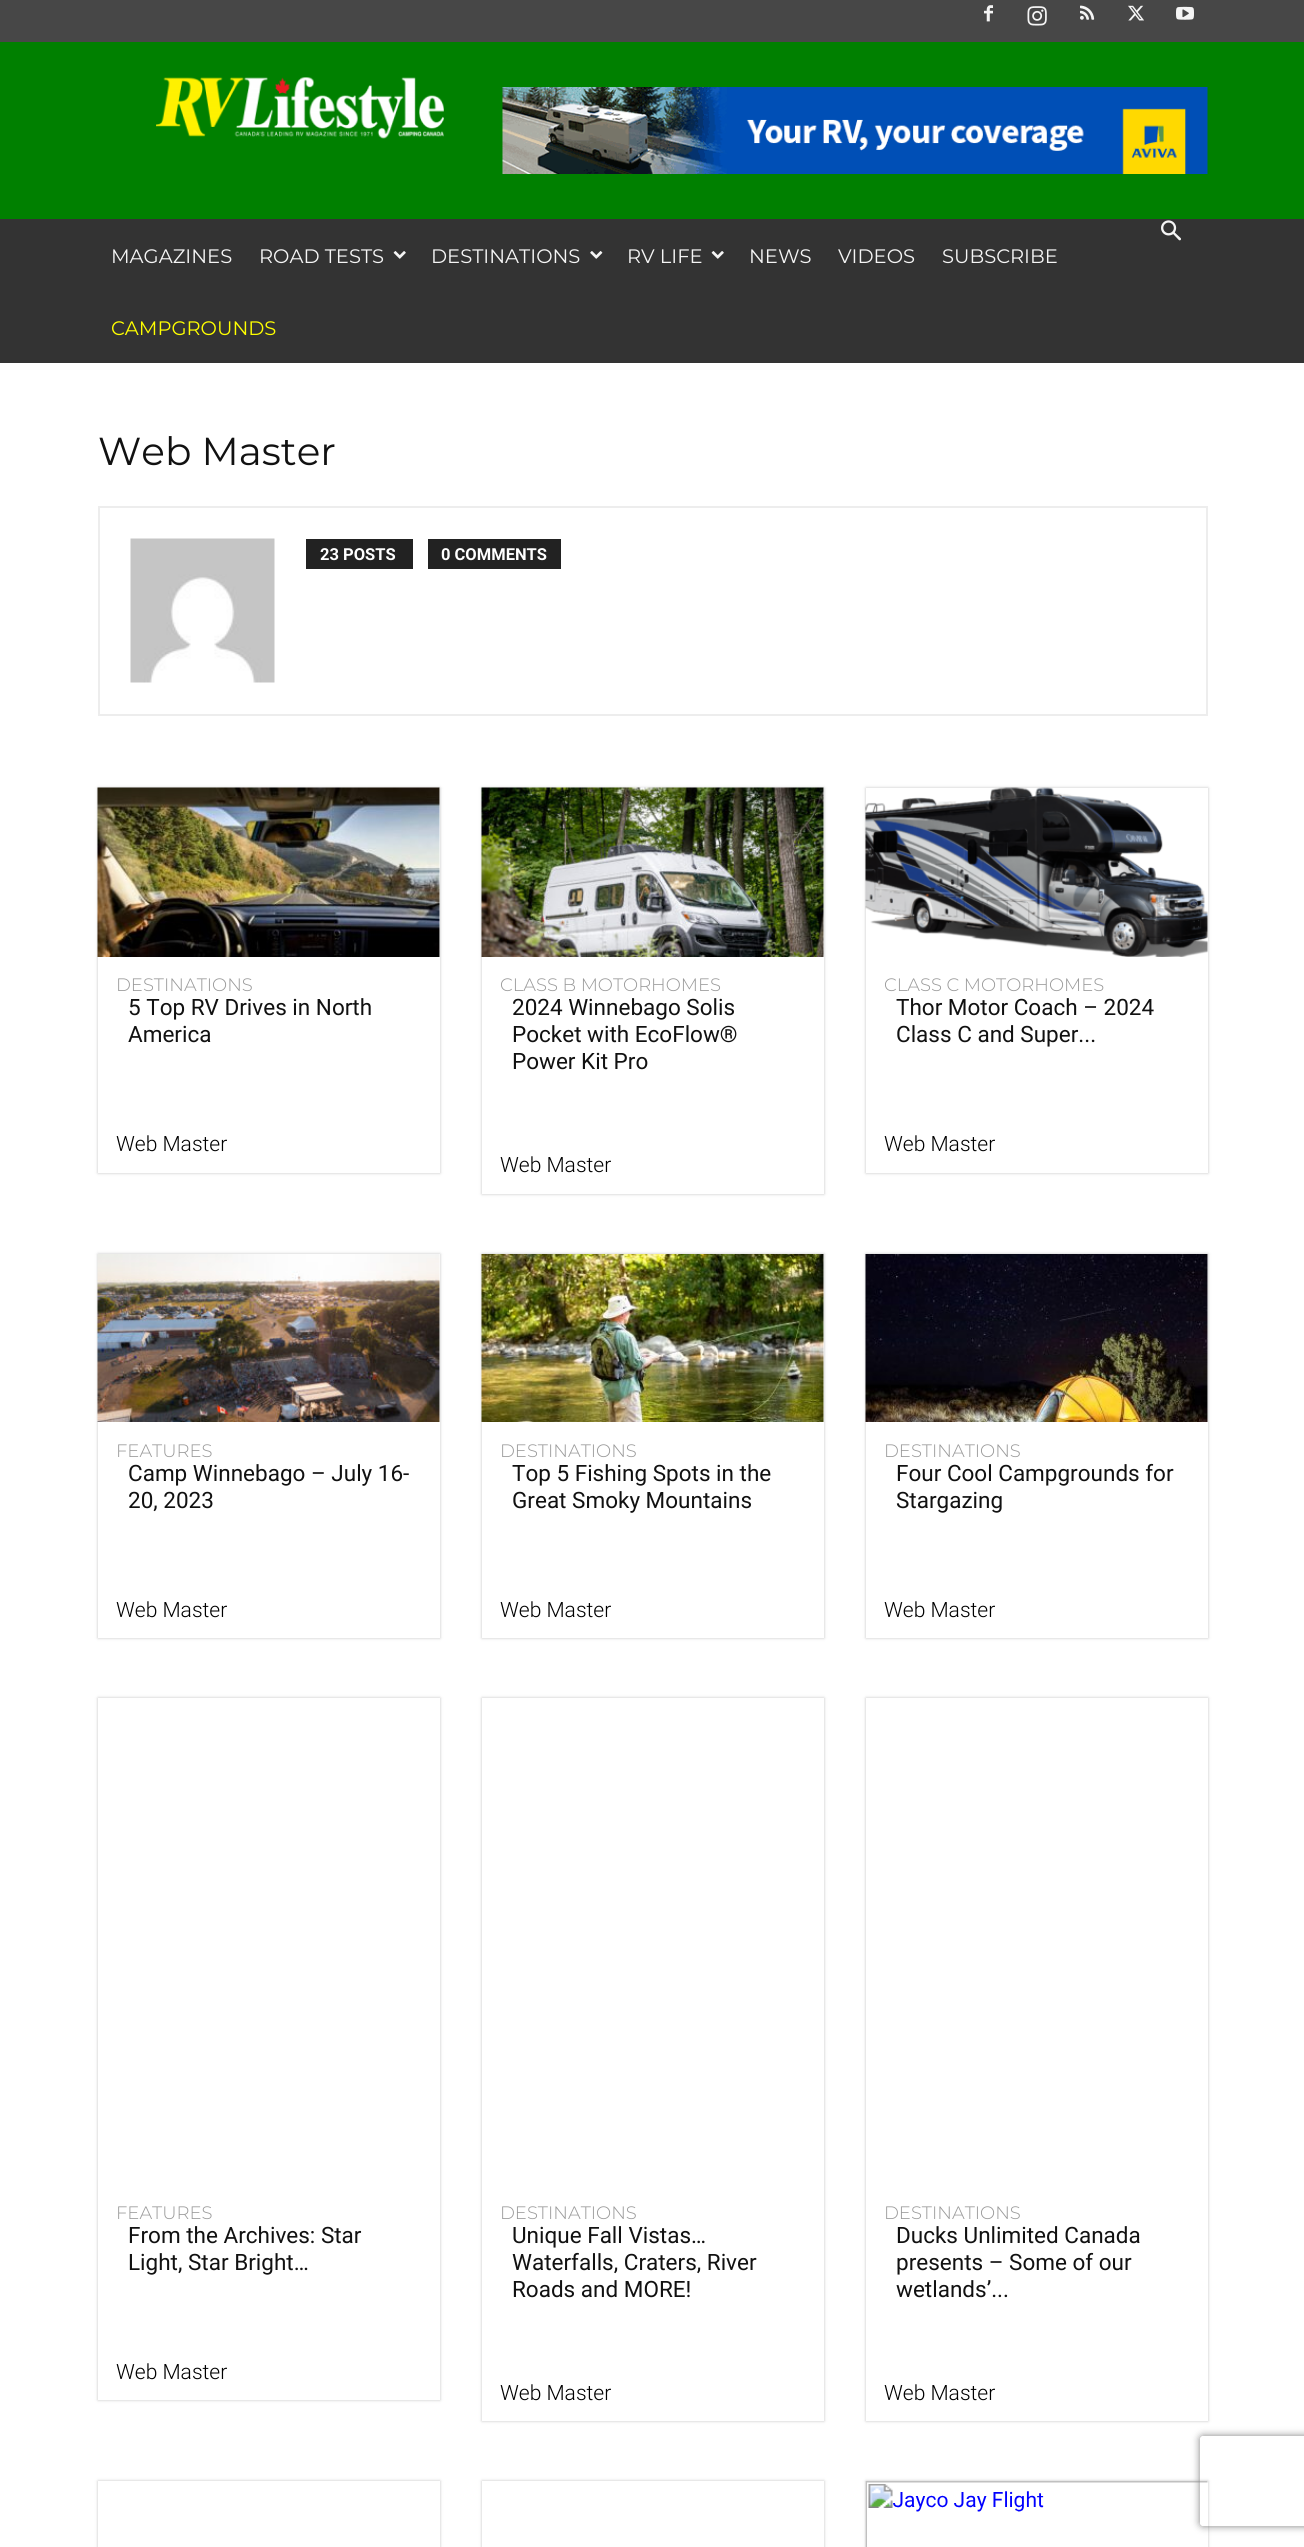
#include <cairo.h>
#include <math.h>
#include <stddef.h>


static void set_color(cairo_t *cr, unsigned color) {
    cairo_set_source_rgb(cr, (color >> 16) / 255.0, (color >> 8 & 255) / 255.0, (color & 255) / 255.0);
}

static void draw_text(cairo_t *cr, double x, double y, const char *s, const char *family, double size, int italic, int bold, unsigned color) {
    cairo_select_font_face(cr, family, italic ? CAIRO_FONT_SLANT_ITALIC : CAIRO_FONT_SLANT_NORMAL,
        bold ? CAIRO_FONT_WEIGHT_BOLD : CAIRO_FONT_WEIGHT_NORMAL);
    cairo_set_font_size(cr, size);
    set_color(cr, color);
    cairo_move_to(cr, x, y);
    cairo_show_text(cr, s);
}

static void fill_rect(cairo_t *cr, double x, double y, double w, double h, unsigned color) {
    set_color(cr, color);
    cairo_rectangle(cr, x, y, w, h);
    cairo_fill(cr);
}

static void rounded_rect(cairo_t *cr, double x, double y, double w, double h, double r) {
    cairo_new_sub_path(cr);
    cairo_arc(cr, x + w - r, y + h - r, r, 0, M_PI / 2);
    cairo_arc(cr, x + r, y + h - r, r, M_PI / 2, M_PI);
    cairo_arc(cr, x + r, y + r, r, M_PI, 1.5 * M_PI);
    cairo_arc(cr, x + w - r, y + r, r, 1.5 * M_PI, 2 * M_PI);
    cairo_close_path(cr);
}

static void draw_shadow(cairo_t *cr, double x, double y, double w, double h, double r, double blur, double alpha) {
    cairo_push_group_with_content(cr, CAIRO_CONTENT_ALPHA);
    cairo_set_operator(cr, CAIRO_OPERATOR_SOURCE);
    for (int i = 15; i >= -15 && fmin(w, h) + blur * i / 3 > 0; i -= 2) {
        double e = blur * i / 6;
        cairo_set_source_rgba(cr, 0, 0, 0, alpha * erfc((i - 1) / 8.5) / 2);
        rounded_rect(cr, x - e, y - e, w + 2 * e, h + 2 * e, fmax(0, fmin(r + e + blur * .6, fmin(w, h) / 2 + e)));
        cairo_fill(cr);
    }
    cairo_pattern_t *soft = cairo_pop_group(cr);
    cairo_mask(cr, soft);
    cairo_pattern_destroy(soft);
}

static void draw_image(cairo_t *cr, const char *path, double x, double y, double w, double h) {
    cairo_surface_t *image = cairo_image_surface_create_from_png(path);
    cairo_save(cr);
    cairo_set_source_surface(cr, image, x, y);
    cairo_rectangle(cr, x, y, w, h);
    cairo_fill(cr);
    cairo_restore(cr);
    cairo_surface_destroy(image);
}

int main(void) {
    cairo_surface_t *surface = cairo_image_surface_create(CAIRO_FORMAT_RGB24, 1304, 2547);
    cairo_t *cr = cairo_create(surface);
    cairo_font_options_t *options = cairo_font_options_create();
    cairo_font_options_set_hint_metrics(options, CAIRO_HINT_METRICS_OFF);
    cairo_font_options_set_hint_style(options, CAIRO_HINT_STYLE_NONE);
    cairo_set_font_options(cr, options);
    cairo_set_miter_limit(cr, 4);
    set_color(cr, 0xFFFFFF);
    cairo_paint(cr);
    fill_rect(cr, 0, 0, 1304, 42, 0x474747);
    draw_image(cr, "assets/img1.png", 984, 5, 9, 17);
    draw_image(cr, "assets/img2.png", 1027, 6, 20, 20);
    draw_image(cr, "assets/img3.png", 1080, 5, 15, 15);
    draw_image(cr, "assets/img4.png", 1128, 5, 16, 16);
    draw_image(cr, "assets/img5.png", 1176, 6, 18, 14);
    fill_rect(cr, 0, 42, 1304, 177, 0x008000);
    draw_image(cr, "assets/img6.png", 156, 77, 288, 62);
    draw_image(cr, "assets/img7.png", 502, 87, 706, 87);
    fill_rect(cr, 0, 219, 1304, 144, 0x333333);
    draw_image(cr, "assets/img8.png", 1161, 220, 20, 21);
    draw_text(cr, 111, 263, "MAGAZINES", "Montserrat", 19.5, 0, 0, 0xF5F5F5);
    draw_text(cr, 259, 263, "ROAD TESTS", "Montserrat", 19.5, 0, 0, 0xF5F5F5);
    draw_image(cr, "assets/img9.png", 393, 251, 13, 8);
    draw_text(cr, 431, 263, "DESTINATIONS", "Montserrat", 19.5, 0, 0, 0xF5F5F5);
    draw_image(cr, "assets/img10.png", 590, 251, 13, 8);
    draw_text(cr, 627, 263, "RV LIFE", "Montserrat", 19.5, 0, 0, 0xF5F5F5);
    draw_image(cr, "assets/img9.png", 711, 251, 13, 8);
    draw_text(cr, 749, 263, "NEWS", "Montserrat", 19.5, 0, 0, 0xF5F5F5);
    draw_text(cr, 838, 263, "VIDEOS", "Montserrat", 19.5, 0, 0, 0xF5F5F5);
    draw_text(cr, 942, 263, "SUBSCRIBE", "Montserrat", 19.5, 0, 0, 0xF5F5F5);
    draw_text(cr, 111, 335, "CAMPGROUNDS", "Montserrat", 19.5, 0, 0, 0xFFFF00);
    draw_text(cr, 98, 465, "Web Master", "Montserrat", 39, 0, 0, 0x111111);
    cairo_rectangle(cr, 99, 507, 1108, 208);
    set_color(cr, 0xEDEDED);
    cairo_stroke(cr);
    draw_image(cr, "assets/img11.png", 130, 538, 145, 145);
    fill_rect(cr, 306, 539, 107, 30, 0x222222);
    draw_text(cr, 320, 560, "23 POSTS", "Roboto", 16.5, 0, 1, 0xFFFFFF);
    fill_rect(cr, 428, 539, 133, 30, 0x222222);
    draw_text(cr, 441, 560, "0 COMMENTS", "Roboto", 16.5, 0, 1, 0xFFFFFF);
    set_color(cr, 0x666666);
    draw_shadow(cr, 98, 788, 342, 385, 0, 1.5, 0.4);
    fill_rect(cr, 98, 788, 342, 385, 0xFFFFFF);
    draw_image(cr, "assets/img12.png", 97, 787, 343, 170);
    draw_text(cr, 116, 991, "DESTINATIONS", "Montserrat Light", 18, 0, 0, 0x999999);
    draw_text(cr, 128, 1015, "5 Top RV Drives in North", "Roboto", 22.5, 0, 0, 0x111111);
    draw_text(cr, 128, 1042, "America", "Roboto", 22.5, 0, 0, 0x111111);
    draw_text(cr, 116, 1151, "Web Master", "Roboto Light", 21, 0, 0, 0x000000);
    set_color(cr, 0x666666);
    draw_shadow(cr, 482, 788, 342, 406, 0, 1.5, 0.4);
    fill_rect(cr, 482, 788, 342, 406, 0xFFFFFF);
    draw_image(cr, "assets/img13.png", 481, 787, 343, 170);
    draw_text(cr, 500, 991, "CLASS B MOTORHOMES", "Montserrat Light", 18, 0, 0, 0x999999);
    draw_text(cr, 512, 1015, "2024 Winnebago Solis", "Roboto", 22.5, 0, 0, 0x111111);
    draw_text(cr, 512, 1042, "Pocket with EcoFlow®", "Roboto", 22.5, 0, 0, 0x111111);
    draw_text(cr, 512, 1069, "Power Kit Pro", "Roboto", 22.5, 0, 0, 0x111111);
    draw_text(cr, 500, 1172, "Web Master", "Roboto Light", 21, 0, 0, 0x000000);
    set_color(cr, 0x666666);
    draw_shadow(cr, 866, 788, 342, 385, 0, 1.5, 0.4);
    fill_rect(cr, 866, 788, 342, 385, 0xFFFFFF);
    draw_image(cr, "assets/img14.png", 865, 787, 343, 170);
    draw_text(cr, 884, 991, "CLASS C MOTORHOMES", "Montserrat Light", 18, 0, 0, 0x999999);
    draw_text(cr, 896, 1015, "Thor Motor Coach – 2024", "Roboto", 22.5, 0, 0, 0x111111);
    draw_text(cr, 896, 1042, "Class C and Super...", "Roboto", 22.5, 0, 0, 0x111111);
    draw_text(cr, 884, 1151, "Web Master", "Roboto Light", 21, 0, 0, 0x000000);
    set_color(cr, 0x666666);
    draw_shadow(cr, 98, 1254, 342, 384, 0, 1.5, 0.4);
    fill_rect(cr, 98, 1254, 342, 384, 0xFFFFFF);
    draw_image(cr, "assets/img15.png", 97, 1254, 343, 168);
    draw_text(cr, 116, 1457, "FEATURES", "Montserrat Light", 18, 0, 0, 0x999999);
    draw_text(cr, 128, 1481, "Camp Winnebago – July 16-", "Roboto", 22.5, 0, 0, 0x111111);
    draw_text(cr, 128, 1508, "20, 2023", "Roboto", 22.5, 0, 0, 0x111111);
    draw_text(cr, 116, 1617, "Web Master", "Roboto Light", 21, 0, 0, 0x000000);
    set_color(cr, 0x666666);
    draw_shadow(cr, 482, 1254, 342, 384, 0, 1.5, 0.4);
    fill_rect(cr, 482, 1254, 342, 384, 0xFFFFFF);
    draw_image(cr, "assets/img16.png", 481, 1254, 343, 168);
    draw_text(cr, 500, 1457, "DESTINATIONS", "Montserrat Light", 18, 0, 0, 0x999999);
    draw_text(cr, 512, 1481, "Top 5 Fishing Spots in the", "Roboto", 22.5, 0, 0, 0x111111);
    draw_text(cr, 512, 1508, "Great Smoky Mountains", "Roboto", 22.5, 0, 0, 0x111111);
    draw_text(cr, 500, 1617, "Web Master", "Roboto Light", 21, 0, 0, 0x000000);
    set_color(cr, 0x666666);
    draw_shadow(cr, 866, 1254, 342, 384, 0, 1.5, 0.4);
    fill_rect(cr, 866, 1254, 342, 384, 0xFFFFFF);
    draw_image(cr, "assets/img17.png", 865, 1254, 343, 168);
    draw_text(cr, 884, 1457, "DESTINATIONS", "Montserrat Light", 18, 0, 0, 0x999999);
    draw_text(cr, 896, 1481, "Four Cool Campgrounds for", "Roboto", 22.5, 0, 0, 0x111111);
    draw_text(cr, 896, 1508, "Stargazing", "Roboto", 22.5, 0, 0, 0x111111);
    draw_text(cr, 884, 1617, "Web Master", "Roboto Light", 21, 0, 0, 0x000000);
    set_color(cr, 0x666666);
    draw_shadow(cr, 98, 1698, 342, 702, 0, 1.5, 0.4);
    fill_rect(cr, 98, 1698, 342, 702, 0xFFFFFF);
    draw_text(cr, 116, 2219, "FEATURES", "Montserrat Light", 18, 0, 0, 0x999999);
    draw_text(cr, 128, 2243, "From the Archives: Star", "Roboto", 22.5, 0, 0, 0x111111);
    draw_text(cr, 128, 2270, "Light, Star Bright…", "Roboto", 22.5, 0, 0, 0x111111);
    draw_text(cr, 116, 2379, "Web Master", "Roboto Light", 21, 0, 0, 0x000000);
    set_color(cr, 0x666666);
    draw_shadow(cr, 482, 1698, 342, 723, 0, 1.5, 0.4);
    fill_rect(cr, 482, 1698, 342, 723, 0xFFFFFF);
    draw_text(cr, 500, 2219, "DESTINATIONS", "Montserrat Light", 18, 0, 0, 0x999999);
    draw_text(cr, 512, 2243, "Unique Fall Vistas…", "Roboto", 22.5, 0, 0, 0x111111);
    draw_text(cr, 512, 2270, "Waterfalls, Craters, River", "Roboto", 22.5, 0, 0, 0x111111);
    draw_text(cr, 512, 2297, "Roads and MORE!", "Roboto", 22.5, 0, 0, 0x111111);
    draw_text(cr, 500, 2400, "Web Master", "Roboto Light", 21, 0, 0, 0x000000);
    set_color(cr, 0x666666);
    draw_shadow(cr, 866, 1698, 342, 723, 0, 1.5, 0.4);
    fill_rect(cr, 866, 1698, 342, 723, 0xFFFFFF);
    draw_text(cr, 884, 2219, "DESTINATIONS", "Montserrat Light", 18, 0, 0, 0x999999);
    draw_text(cr, 896, 2243, "Ducks Unlimited Canada", "Roboto", 22.5, 0, 0, 0x111111);
    draw_text(cr, 896, 2270, "presents – Some of our", "Roboto", 22.5, 0, 0, 0x111111);
    draw_text(cr, 896, 2297, "wetlands’...", "Roboto", 22.5, 0, 0, 0x111111);
    draw_text(cr, 884, 2400, "Web Master", "Roboto Light", 21, 0, 0, 0x000000);
    set_color(cr, 0x666666);
    draw_shadow(cr, 98, 2481, 342, 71, 0, 1.5, 0.4);
    fill_rect(cr, 98, 2481, 342, 66, 0xFFFFFF);
    set_color(cr, 0x666666);
    draw_shadow(cr, 482, 2481, 342, 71, 0, 1.5, 0.4);
    fill_rect(cr, 482, 2481, 342, 66, 0xFFFFFF);
    set_color(cr, 0x666666);
    draw_shadow(cr, 866, 2481, 342, 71, 0, 1.5, 0.4);
    fill_rect(cr, 867, 2481, 341, 66, 0xFFFFFF);
    draw_image(cr, "assets/img18.png", 865, 2481, 343, 66);
    cairo_save(cr);
    cairo_set_fill_rule(cr, CAIRO_FILL_RULE_EVEN_ODD);
    cairo_new_path(cr);
    cairo_move_to(cr, 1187, 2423);
    cairo_line_to(cr, 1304, 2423);
    cairo_line_to(cr, 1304, 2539);
    cairo_line_to(cr, 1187, 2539);
    cairo_close_path(cr);
    cairo_move_to(cr, 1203, 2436);
    cairo_line_to(cr, 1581, 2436);
    cairo_curve_to(cr, 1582.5, 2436, 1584, 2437.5, 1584, 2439);
    cairo_line_to(cr, 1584, 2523);
    cairo_curve_to(cr, 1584, 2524.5, 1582.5, 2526, 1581, 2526);
    cairo_line_to(cr, 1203, 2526);
    cairo_curve_to(cr, 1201.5, 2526, 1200, 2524.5, 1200, 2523);
    cairo_line_to(cr, 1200, 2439);
    cairo_curve_to(cr, 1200, 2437.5, 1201.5, 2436, 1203, 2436);
    cairo_close_path(cr);
    cairo_clip(cr);
    set_color(cr, 0x808080);
    draw_shadow(cr, 1200, 2436, 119, 90, 3, 4, 1);
    cairo_restore(cr);
    cairo_surface_write_to_png(surface, "output.png");
    cairo_font_options_destroy(options);
    cairo_destroy(cr);
    cairo_surface_destroy(surface);
    return 0;
}
